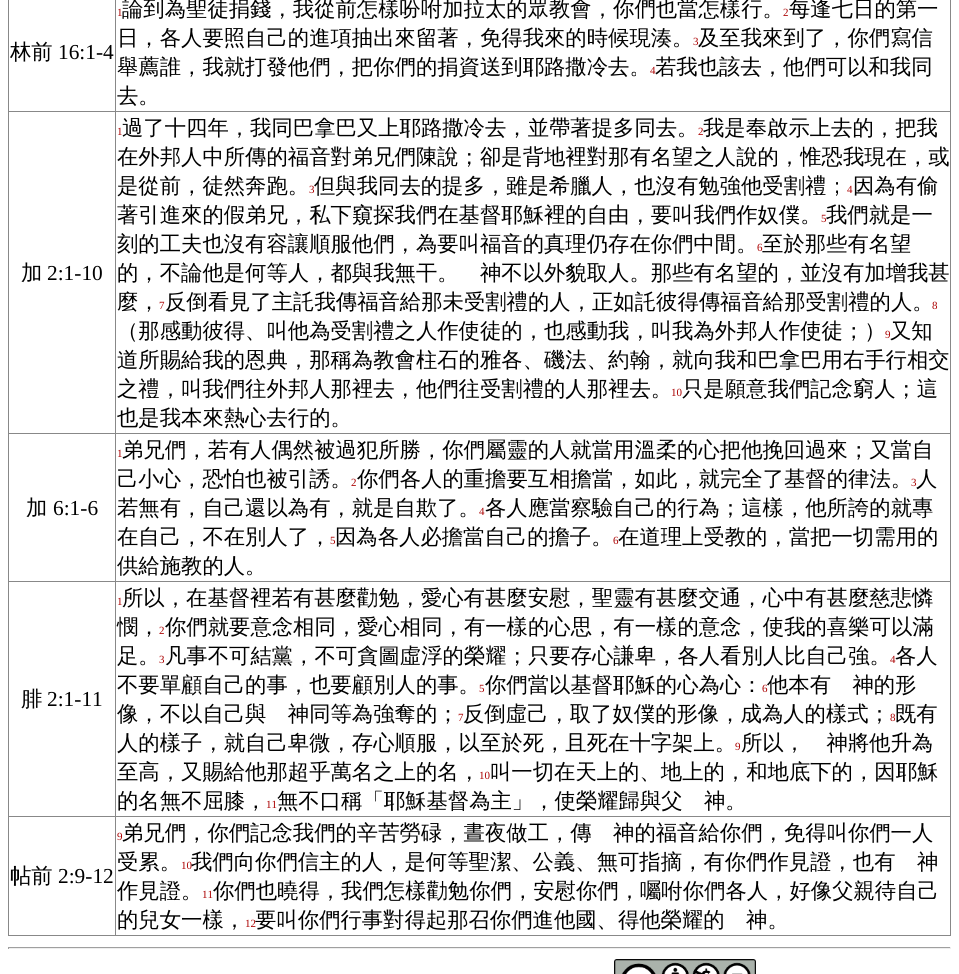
#include <cairo.h>
#include <math.h>
#include <stddef.h>


static void set_color(cairo_t *cr, unsigned color) {
    cairo_set_source_rgb(cr, (color >> 16) / 255.0, (color >> 8 & 255) / 255.0, (color & 255) / 255.0);
}

static void draw_text(cairo_t *cr, double x, double y, const char *s, const char *family, double size, int italic, int bold, unsigned color) {
    cairo_select_font_face(cr, family, italic ? CAIRO_FONT_SLANT_ITALIC : CAIRO_FONT_SLANT_NORMAL,
        bold ? CAIRO_FONT_WEIGHT_BOLD : CAIRO_FONT_WEIGHT_NORMAL);
    cairo_set_font_size(cr, size);
    set_color(cr, color);
    cairo_move_to(cr, x, y);
    cairo_show_text(cr, s);
}

static void fill_rect(cairo_t *cr, double x, double y, double w, double h, unsigned color) {
    set_color(cr, color);
    cairo_rectangle(cr, x, y, w, h);
    cairo_fill(cr);
}

static void draw_image(cairo_t *cr, const char *path, double x, double y, double w, double h) {
    cairo_surface_t *image = cairo_image_surface_create_from_png(path);
    cairo_save(cr);
    cairo_set_source_surface(cr, image, x, y);
    cairo_rectangle(cr, x, y, w, h);
    cairo_fill(cr);
    cairo_restore(cr);
    cairo_surface_destroy(image);
}

int main(void) {
    cairo_surface_t *surface = cairo_image_surface_create(CAIRO_FORMAT_RGB24, 959, 974);
    cairo_t *cr = cairo_create(surface);
    cairo_font_options_t *options = cairo_font_options_create();
    cairo_font_options_set_hint_metrics(options, CAIRO_HINT_METRICS_OFF);
    cairo_font_options_set_hint_style(options, CAIRO_HINT_STYLE_NONE);
    cairo_set_font_options(cr, options);
    cairo_set_miter_limit(cr, 4);
    set_color(cr, 0xFFFFFF);
    cairo_paint(cr);
    fill_rect(cr, 950, 0, 1, 936, 0x888888);
    fill_rect(cr, 8, 935, 943, 1, 0x888888);
    fill_rect(cr, 8, 0, 1, 936, 0x888888);
    draw_text(cr, 10, 59, "林前", "WenQuanYi Zen Hei Medium", 21.35, 0, 0, 0x000000);
    draw_text(cr, 58, 59, "16:1-4", "Liberation Serif", 21.35, 0, 0, 0x000000);
    draw_text(cr, 117, 16, "1", "Liberation Serif", 11, 0, 0, 0xAA0000);
    draw_text(cr, 122, 16, "論到為聖徒捐錢，我從前怎樣吩咐加拉太的眾教會，你們也當怎樣行。", "WenQuanYi Zen Hei Medium", 21.35, 0, 0, 0x000000);
    draw_text(cr, 783, 16, "2", "Liberation Serif", 11, 0, 0, 0xAA0000);
    draw_text(cr, 789, 16, "每逢七日的第一", "WenQuanYi Zen Hei Medium", 21.35, 0, 0, 0x000000);
    draw_text(cr, 117, 45, "日，各人要照自己的進項抽出來留著，免得我來的時候現湊。", "WenQuanYi Zen Hei Medium", 21.35, 0, 0, 0x000000);
    draw_text(cr, 693, 45, "3", "Liberation Serif", 11, 0, 0, 0xAA0000);
    draw_text(cr, 698, 45, "及至我來到了，你們寫信", "WenQuanYi Zen Hei Medium", 21.35, 0, 0, 0x000000);
    draw_text(cr, 117, 74, "舉薦誰，我就打發他們，把你們的捐資送到耶路撒冷去。", "WenQuanYi Zen Hei Medium", 21.35, 0, 0, 0x000000);
    draw_text(cr, 650, 74, "4", "Liberation Serif", 11, 0, 0, 0xAA0000);
    draw_text(cr, 655, 74, "若我也該去，他們可以和我同", "WenQuanYi Zen Hei Medium", 21.35, 0, 0, 0x000000);
    draw_text(cr, 117, 103, "去。", "WenQuanYi Zen Hei Medium", 21.35, 0, 0, 0x000000);
    fill_rect(cr, 8, 111, 943, 1, 0x888888);
    draw_text(cr, 21, 280, "加", "WenQuanYi Zen Hei Medium", 21.35, 0, 0, 0x000000);
    draw_text(cr, 47, 280, "2:1-10", "Liberation Serif", 21.35, 0, 0, 0x000000);
    draw_text(cr, 117, 135, "1", "Liberation Serif", 11, 0, 0, 0xAA0000);
    draw_text(cr, 122, 135, "過了十四年，我同巴拿巴又上耶路撒冷去，並帶著提多同去。", "WenQuanYi Zen Hei Medium", 21.35, 0, 0, 0x000000);
    draw_text(cr, 698, 135, "2", "Liberation Serif", 11, 0, 0, 0xAA0000);
    draw_text(cr, 703, 135, "我是奉啟示上去的，把我", "WenQuanYi Zen Hei Medium", 21.35, 0, 0, 0x000000);
    draw_text(cr, 117, 164, "在外邦人中所傳的福音對弟兄們陳說；卻是背地裡對那有名望之人說的，惟恐我現在，或", "WenQuanYi Zen Hei Medium", 21.35, 0, 0, 0x000000);
    draw_text(cr, 117, 193, "是從前，徒然奔跑。", "WenQuanYi Zen Hei Medium", 21.35, 0, 0, 0x000000);
    draw_text(cr, 309, 193, "3", "Liberation Serif", 11, 0, 0, 0xAA0000);
    draw_text(cr, 314, 193, "但與我同去的提多，雖是希臘人，也沒有勉強他受割禮；", "WenQuanYi Zen Hei Medium", 21.35, 0, 0, 0x000000);
    draw_text(cr, 847, 193, "4", "Liberation Serif", 11, 0, 0, 0xAA0000);
    draw_text(cr, 853, 193, "因為有偷", "WenQuanYi Zen Hei Medium", 21.35, 0, 0, 0x000000);
    draw_text(cr, 117, 222, "著引進來的假弟兄，私下窺探我們在基督耶穌裡的自由，要叫我們作奴僕。", "WenQuanYi Zen Hei Medium", 21.35, 0, 0, 0x000000);
    draw_text(cr, 821, 222, "5", "Liberation Serif", 11, 0, 0, 0xAA0000);
    draw_text(cr, 826, 222, "我們就是一", "WenQuanYi Zen Hei Medium", 21.35, 0, 0, 0x000000);
    draw_text(cr, 117, 251, "刻的工夫也沒有容讓順服他們，為要叫福音的真理仍存在你們中間。", "WenQuanYi Zen Hei Medium", 21.35, 0, 0, 0x000000);
    draw_text(cr, 757, 251, "6", "Liberation Serif", 11, 0, 0, 0xAA0000);
    draw_text(cr, 762, 251, "至於那些有名望", "WenQuanYi Zen Hei Medium", 21.35, 0, 0, 0x000000);
    draw_text(cr, 117, 280, "的，不論他是何等人，都與我無干。　神不以外貌取人。那些有名望的，並沒有加增我甚", "WenQuanYi Zen Hei Medium", 21.35, 0, 0, 0x000000);
    draw_text(cr, 117, 309, "麼，", "WenQuanYi Zen Hei Medium", 21.35, 0, 0, 0x000000);
    draw_text(cr, 159, 309, "7", "Liberation Serif", 11, 0, 0, 0xAA0000);
    draw_text(cr, 165, 309, "反倒看見了主託我傳福音給那未受割禮的人，正如託彼得傳福音給那受割禮的人。", "WenQuanYi Zen Hei Medium", 21.35, 0, 0, 0x000000);
    draw_text(cr, 932, 309, "8", "Liberation Serif", 11, 0, 0, 0xAA0000);
    draw_text(cr, 117, 338, "（那感動彼得、叫他為受割禮之人作使徒的，也感動我，叫我為外邦人作使徒；）", "WenQuanYi Zen Hei Medium", 21.35, 0, 0, 0x000000);
    draw_text(cr, 885, 338, "9", "Liberation Serif", 11, 0, 0, 0xAA0000);
    draw_text(cr, 890, 338, "又知", "WenQuanYi Zen Hei Medium", 21.35, 0, 0, 0x000000);
    draw_text(cr, 117, 367, "道所賜給我的恩典，那稱為教會柱石的雅各、磯法、約翰，就向我和巴拿巴用右手行相交", "WenQuanYi Zen Hei Medium", 21.35, 0, 0, 0x000000);
    draw_text(cr, 117, 396, "之禮，叫我們往外邦人那裡去，他們往受割禮的人那裡去。", "WenQuanYi Zen Hei Medium", 21.35, 0, 0, 0x000000);
    draw_text(cr, 671, 396, "10", "Liberation Serif", 11, 0, 0, 0xAA0000);
    draw_text(cr, 682, 396, "只是願意我們記念窮人；這", "WenQuanYi Zen Hei Medium", 21.35, 0, 0, 0x000000);
    draw_text(cr, 117, 425, "也是我本來熱心去行的。", "WenQuanYi Zen Hei Medium", 21.35, 0, 0, 0x000000);
    fill_rect(cr, 8, 433, 943, 1, 0x888888);
    draw_text(cr, 26, 515, "加", "WenQuanYi Zen Hei Medium", 21.35, 0, 0, 0x000000);
    draw_text(cr, 53, 515, "6:1-6", "Liberation Serif", 21.35, 0, 0, 0x000000);
    draw_text(cr, 117, 457, "1", "Liberation Serif", 11, 0, 0, 0xAA0000);
    draw_text(cr, 122, 457, "弟兄們，若有人偶然被過犯所勝，你們屬靈的人就當用溫柔的心把他挽回過來；又當自", "WenQuanYi Zen Hei Medium", 21.35, 0, 0, 0x000000);
    draw_text(cr, 117, 486, "己小心，恐怕也被引誘。", "WenQuanYi Zen Hei Medium", 21.35, 0, 0, 0x000000);
    draw_text(cr, 351, 486, "2", "Liberation Serif", 11, 0, 0, 0xAA0000);
    draw_text(cr, 357, 486, "你們各人的重擔要互相擔當，如此，就完全了基督的律法。", "WenQuanYi Zen Hei Medium", 21.35, 0, 0, 0x000000);
    draw_text(cr, 911, 486, "3", "Liberation Serif", 11, 0, 0, 0xAA0000);
    draw_text(cr, 916, 486, "人", "WenQuanYi Zen Hei Medium", 21.35, 0, 0, 0x000000);
    draw_text(cr, 117, 515, "若無有，自己還以為有，就是自欺了。", "WenQuanYi Zen Hei Medium", 21.35, 0, 0, 0x000000);
    draw_text(cr, 479, 515, "4", "Liberation Serif", 11, 0, 0, 0xAA0000);
    draw_text(cr, 485, 515, "各人應當察驗自己的行為；這樣，他所誇的就專", "WenQuanYi Zen Hei Medium", 21.35, 0, 0, 0x000000);
    draw_text(cr, 117, 544, "在自己，不在別人了，", "WenQuanYi Zen Hei Medium", 21.35, 0, 0, 0x000000);
    draw_text(cr, 330, 544, "5", "Liberation Serif", 11, 0, 0, 0xAA0000);
    draw_text(cr, 335, 544, "因為各人必擔當自己的擔子。", "WenQuanYi Zen Hei Medium", 21.35, 0, 0, 0x000000);
    draw_text(cr, 613, 544, "6", "Liberation Serif", 11, 0, 0, 0xAA0000);
    draw_text(cr, 618, 544, "在道理上受教的，當把一切需用的", "WenQuanYi Zen Hei Medium", 21.35, 0, 0, 0x000000);
    draw_text(cr, 117, 573, "供給施教的人。", "WenQuanYi Zen Hei Medium", 21.35, 0, 0, 0x000000);
    fill_rect(cr, 8, 581, 943, 1, 0x888888);
    draw_text(cr, 21, 706, "腓", "WenQuanYi Zen Hei Medium", 21.35, 0, 0, 0x000000);
    draw_text(cr, 47, 706, "2:1-11", "Liberation Serif", 21.35, 0, 0, 0x000000);
    draw_text(cr, 117, 605, "1", "Liberation Serif", 11, 0, 0, 0xAA0000);
    draw_text(cr, 122, 605, "所以，在基督裡若有甚麼勸勉，愛心有甚麼安慰，聖靈有甚麼交通，心中有甚麼慈悲憐", "WenQuanYi Zen Hei Medium", 21.35, 0, 0, 0x000000);
    draw_text(cr, 117, 634, "憫，", "WenQuanYi Zen Hei Medium", 21.35, 0, 0, 0x000000);
    draw_text(cr, 159, 634, "2", "Liberation Serif", 11, 0, 0, 0xAA0000);
    draw_text(cr, 165, 634, "你們就要意念相同，愛心相同，有一樣的心思，有一樣的意念，使我的喜樂可以滿", "WenQuanYi Zen Hei Medium", 21.35, 0, 0, 0x000000);
    draw_text(cr, 117, 663, "足。", "WenQuanYi Zen Hei Medium", 21.35, 0, 0, 0x000000);
    draw_text(cr, 159, 663, "3", "Liberation Serif", 11, 0, 0, 0xAA0000);
    draw_text(cr, 165, 663, "凡事不可結黨，不可貪圖虛浮的榮耀；只要存心謙卑，各人看別人比自己強。", "WenQuanYi Zen Hei Medium", 21.35, 0, 0, 0x000000);
    draw_text(cr, 890, 663, "4", "Liberation Serif", 11, 0, 0, 0xAA0000);
    draw_text(cr, 895, 663, "各人", "WenQuanYi Zen Hei Medium", 21.35, 0, 0, 0x000000);
    draw_text(cr, 117, 692, "不要單顧自己的事，也要顧別人的事。", "WenQuanYi Zen Hei Medium", 21.35, 0, 0, 0x000000);
    draw_text(cr, 479, 692, "5", "Liberation Serif", 11, 0, 0, 0xAA0000);
    draw_text(cr, 485, 692, "你們當以基督耶穌的心為心：", "WenQuanYi Zen Hei Medium", 21.35, 0, 0, 0x000000);
    draw_text(cr, 762, 692, "6", "Liberation Serif", 11, 0, 0, 0xAA0000);
    draw_text(cr, 767, 692, "他本有　神的形", "WenQuanYi Zen Hei Medium", 21.35, 0, 0, 0x000000);
    draw_text(cr, 117, 721, "像，不以自己與　神同等為強奪的；", "WenQuanYi Zen Hei Medium", 21.35, 0, 0, 0x000000);
    draw_text(cr, 458, 721, "7", "Liberation Serif", 11, 0, 0, 0xAA0000);
    draw_text(cr, 463, 721, "反倒虛己，取了奴僕的形像，成為人的樣式；", "WenQuanYi Zen Hei Medium", 21.35, 0, 0, 0x000000);
    draw_text(cr, 890, 721, "8", "Liberation Serif", 11, 0, 0, 0xAA0000);
    draw_text(cr, 895, 721, "既有", "WenQuanYi Zen Hei Medium", 21.35, 0, 0, 0x000000);
    draw_text(cr, 117, 750, "人的樣子，就自己卑微，存心順服，以至於死，且死在十字架上。", "WenQuanYi Zen Hei Medium", 21.35, 0, 0, 0x000000);
    draw_text(cr, 735, 750, "9", "Liberation Serif", 11, 0, 0, 0xAA0000);
    draw_text(cr, 741, 750, "所以，　神將他升為", "WenQuanYi Zen Hei Medium", 21.35, 0, 0, 0x000000);
    draw_text(cr, 117, 779, "至高，又賜給他那超乎萬名之上的名，", "WenQuanYi Zen Hei Medium", 21.35, 0, 0, 0x000000);
    draw_text(cr, 479, 779, "10", "Liberation Serif", 11, 0, 0, 0xAA0000);
    draw_text(cr, 490, 779, "叫一切在天上的、地上的，和地底下的，因耶穌", "WenQuanYi Zen Hei Medium", 21.35, 0, 0, 0x000000);
    draw_text(cr, 117, 808, "的名無不屈膝，", "WenQuanYi Zen Hei Medium", 21.35, 0, 0, 0x000000);
    draw_text(cr, 266, 808, "11", "Liberation Serif", 11, 0, 0, 0xAA0000);
    draw_text(cr, 277, 808, "無不口稱「耶穌基督為主」，使榮耀歸與父　神。", "WenQuanYi Zen Hei Medium", 21.35, 0, 0, 0x000000);
    fill_rect(cr, 8, 816, 943, 1, 0x888888);
    draw_text(cr, 10, 883, "帖前", "WenQuanYi Zen Hei Medium", 21.35, 0, 0, 0x000000);
    draw_text(cr, 58, 883, "2:9-12", "Liberation Serif", 21.35, 0, 0, 0x000000);
    fill_rect(cr, 115, 0, 1, 936, 0x888888);
    draw_text(cr, 117, 840, "9", "Liberation Serif", 11, 0, 0, 0xAA0000);
    draw_text(cr, 122, 840, "弟兄們，你們記念我們的辛苦勞碌，晝夜做工，傳　神的福音給你們，免得叫你們一人", "WenQuanYi Zen Hei Medium", 21.35, 0, 0, 0x000000);
    draw_text(cr, 117, 869, "受累。", "WenQuanYi Zen Hei Medium", 21.35, 0, 0, 0x000000);
    draw_text(cr, 181, 869, "10", "Liberation Serif", 11, 0, 0, 0xAA0000);
    draw_text(cr, 191, 869, "我們向你們信主的人，是何等聖潔、公義、無可指摘，有你們作見證，也有　神", "WenQuanYi Zen Hei Medium", 21.35, 0, 0, 0x000000);
    draw_text(cr, 117, 898, "作見證。", "WenQuanYi Zen Hei Medium", 21.35, 0, 0, 0x000000);
    draw_text(cr, 202, 898, "11", "Liberation Serif", 11, 0, 0, 0xAA0000);
    draw_text(cr, 213, 898, "你們也曉得，我們怎樣勸勉你們，安慰你們，囑咐你們各人，好像父親待自己", "WenQuanYi Zen Hei Medium", 21.35, 0, 0, 0x000000);
    draw_text(cr, 117, 927, "的兒女一樣，", "WenQuanYi Zen Hei Medium", 21.35, 0, 0, 0x000000);
    draw_text(cr, 245, 927, "12", "Liberation Serif", 11, 0, 0, 0xAA0000);
    draw_text(cr, 255, 927, "要叫你們行事對得起那召你們進他國、得他榮耀的　神。", "WenQuanYi Zen Hei Medium", 21.35, 0, 0, 0x000000);
    fill_rect(cr, 8, 947, 943, 1, 0x9F9F9F);
    fill_rect(cr, 950, 947, 1, 2, 0xEEEEEE);
    fill_rect(cr, 8, 948, 943, 1, 0xEEEEEE);
    fill_rect(cr, 8, 947, 1, 2, 0x9F9F9F);
    draw_image(cr, "assets/img1.png", 614, 959, 142, 15);
    cairo_surface_write_to_png(surface, "output.png");
    cairo_font_options_destroy(options);
    cairo_destroy(cr);
    cairo_surface_destroy(surface);
    return 0;
}
